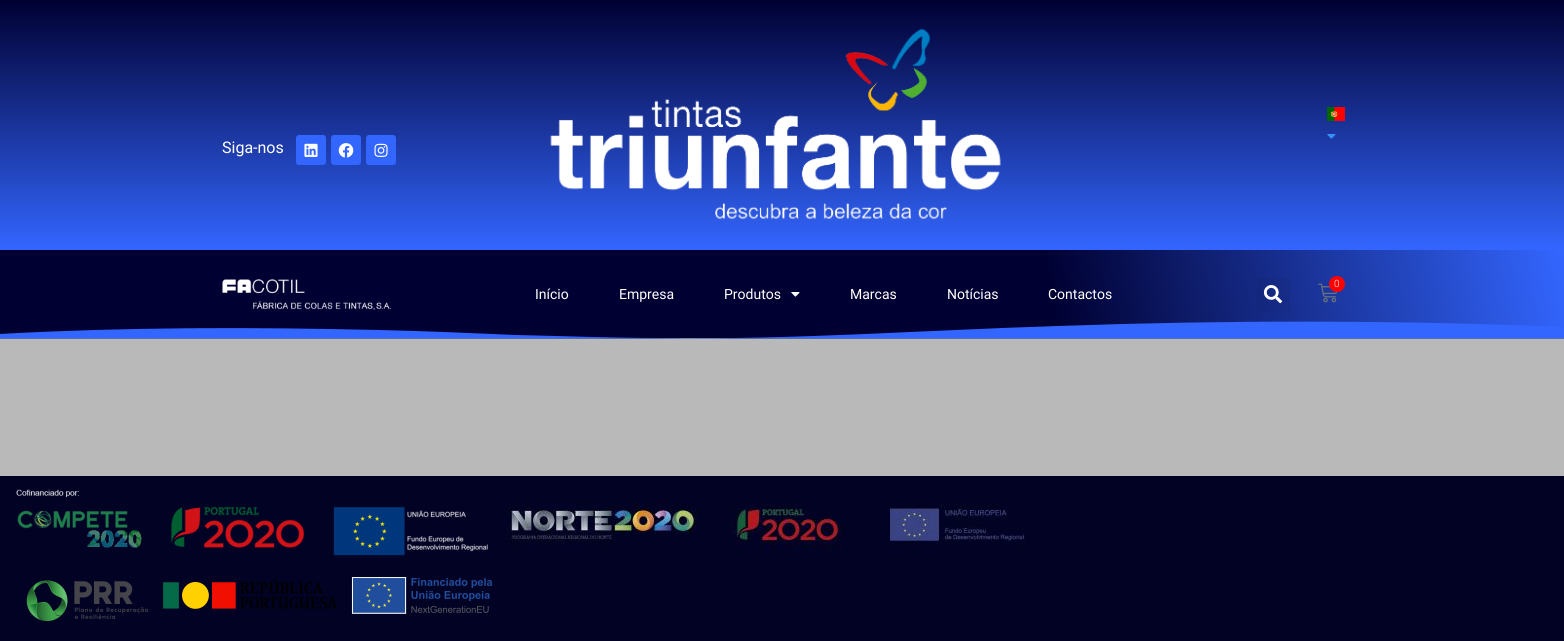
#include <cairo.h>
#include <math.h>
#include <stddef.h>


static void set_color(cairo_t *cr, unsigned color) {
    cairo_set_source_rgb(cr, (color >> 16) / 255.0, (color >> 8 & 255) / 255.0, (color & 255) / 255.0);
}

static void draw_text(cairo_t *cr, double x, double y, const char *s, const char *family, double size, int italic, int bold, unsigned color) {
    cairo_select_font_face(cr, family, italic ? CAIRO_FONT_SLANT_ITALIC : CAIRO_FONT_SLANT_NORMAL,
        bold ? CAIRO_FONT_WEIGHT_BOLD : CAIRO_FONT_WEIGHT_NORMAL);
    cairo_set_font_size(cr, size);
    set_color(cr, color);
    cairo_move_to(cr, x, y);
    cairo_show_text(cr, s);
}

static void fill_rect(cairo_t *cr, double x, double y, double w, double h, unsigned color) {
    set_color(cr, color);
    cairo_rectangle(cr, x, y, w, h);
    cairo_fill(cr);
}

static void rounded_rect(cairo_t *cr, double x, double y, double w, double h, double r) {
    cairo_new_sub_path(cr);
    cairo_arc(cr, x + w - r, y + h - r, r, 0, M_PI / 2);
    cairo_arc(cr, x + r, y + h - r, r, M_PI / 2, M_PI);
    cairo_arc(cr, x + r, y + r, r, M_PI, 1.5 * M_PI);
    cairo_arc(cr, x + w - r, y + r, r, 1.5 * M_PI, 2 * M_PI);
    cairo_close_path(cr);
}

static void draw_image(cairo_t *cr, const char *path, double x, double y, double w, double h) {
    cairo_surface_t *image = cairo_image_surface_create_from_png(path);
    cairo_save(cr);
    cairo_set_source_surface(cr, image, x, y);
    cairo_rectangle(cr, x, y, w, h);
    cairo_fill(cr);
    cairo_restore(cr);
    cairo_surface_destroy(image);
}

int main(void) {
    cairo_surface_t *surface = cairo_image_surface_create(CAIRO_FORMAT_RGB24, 1564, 641);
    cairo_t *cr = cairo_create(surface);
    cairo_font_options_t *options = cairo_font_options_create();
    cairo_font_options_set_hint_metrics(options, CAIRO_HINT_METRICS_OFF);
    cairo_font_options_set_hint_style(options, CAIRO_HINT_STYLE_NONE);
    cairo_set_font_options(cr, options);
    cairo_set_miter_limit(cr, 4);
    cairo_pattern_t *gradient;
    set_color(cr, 0xFFFFFF);
    cairo_paint(cr);
    gradient = cairo_pattern_create_linear(782, 0, 782, 250);
    cairo_pattern_add_color_stop_rgba(gradient, 0, 0, 0, 0.196, 1);
    cairo_pattern_add_color_stop_rgba(gradient, 1, 0.2, 0.4, 1, 1);
    cairo_set_source(cr, gradient);
    cairo_pattern_destroy(gradient);
    cairo_rectangle(cr, 0, 0, 1564, 250);
    cairo_fill(cr);
    draw_image(cr, "assets/img1.png", 550, 28, 451, 191);
    draw_image(cr, "assets/img2.png", 1327, 107, 18, 14);
    draw_image(cr, "assets/img3.png", 1327, 134, 9, 5);
    draw_text(cr, 222, 153, "Siga-nos", "Roboto", 16, 0, 0, 0xFFFFFF);
    set_color(cr, 0x3366FF);
    rounded_rect(cr, 296, 135, 30, 30, 3);
    cairo_fill(cr);
    draw_image(cr, "assets/img4.png", 304, 143, 14, 14);
    rounded_rect(cr, 331, 135, 30, 30, 3);
    cairo_fill(cr);
    draw_image(cr, "assets/img5.png", 338, 143, 16, 15);
    rounded_rect(cr, 366, 135, 30, 30, 3);
    cairo_fill(cr);
    draw_image(cr, "assets/img6.png", 374, 143, 14, 14);
    gradient = cairo_pattern_create_linear(1548, 159, 16, 429);
    cairo_pattern_add_color_stop_rgba(gradient, 0, 0.2, 0.4, 1, 1);
    cairo_pattern_add_color_stop_rgba(gradient, 0.33, 0, 0, 0.196, 1);
    cairo_set_source(cr, gradient);
    cairo_pattern_destroy(gradient);
    cairo_rectangle(cr, 0, 250, 1564, 88);
    cairo_fill(cr);
    draw_image(cr, "assets/img7.png", 222, 279, 169, 31);
    cairo_set_source_rgba(cr, 0, 0, 0, 0.05);
    cairo_rectangle(cr, 1257, 278, 33, 33);
    cairo_fill(cr);
    draw_image(cr, "assets/img8.png", 1263, 285, 19, 19);
    draw_image(cr, "assets/img9.png", 1318, 283, 20, 20);
    set_color(cr, 0xFF0000);
    cairo_arc(cr, 1337, 284, 8, 0, 2 * M_PI);
    cairo_fill(cr);
    draw_text(cr, 1334, 287, "0", "Roboto Light", 10, 0, 0, 0xFFFFFF);
    draw_text(cr, 535, 299, "Início", "Roboto", 14, 0, 0, 0xFFFFFF);
    draw_text(cr, 619, 299, "Empresa", "Roboto", 14, 0, 0, 0xFFFFFF);
    draw_text(cr, 724, 299, "Produtos", "Roboto", 14, 0, 0, 0xFFFFFF);
    draw_image(cr, "assets/img10.png", 791, 292, 9, 5);
    draw_text(cr, 850, 299, "Marcas", "Roboto", 14, 0, 0, 0xFFFFFF);
    draw_text(cr, 947, 299, "Notícias", "Roboto", 14, 0, 0, 0xFFFFFF);
    draw_text(cr, 1048, 299, "Contactos", "Roboto", 14, 0, 0, 0xFFFFFF);
    set_color(cr, 0x3366FF);
    cairo_new_path(cr);
    cairo_move_to(cr, 660, 338);
    cairo_curve_to(cr, 793, 340, 926, 330, 1058, 326);
    cairo_curve_to(cr, 1227, 320, 1396, 320, 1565, 327);
    cairo_line_to(cr, 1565, 339);
    cairo_line_to(cr, -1, 339);
    cairo_line_to(cr, -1, 334);
    cairo_curve_to(cr, 126, 327, 252, 327, 379, 330);
    cairo_curve_to(cr, 424, 331, 470, 333, 516, 335);
    cairo_curve_to(cr, 564, 336, 612, 338, 660, 338);
    cairo_close_path(cr);
    cairo_fill(cr);
    cairo_set_source_rgba(cr, 0.459, 0.459, 0.459, 0.5);
    cairo_rectangle(cr, 0, 338, 1564, 138);
    cairo_fill(cr);
    fill_rect(cr, 0, 476, 1564, 165, 0x020225);
    draw_image(cr, "assets/img11.png", 16, 489, 472, 67);
    draw_image(cr, "assets/img12.png", 506, 501, 520, 49);
    draw_image(cr, "assets/img13.png", 26, 577, 467, 45);
    cairo_surface_write_to_png(surface, "output.png");
    cairo_font_options_destroy(options);
    cairo_destroy(cr);
    cairo_surface_destroy(surface);
    return 0;
}
